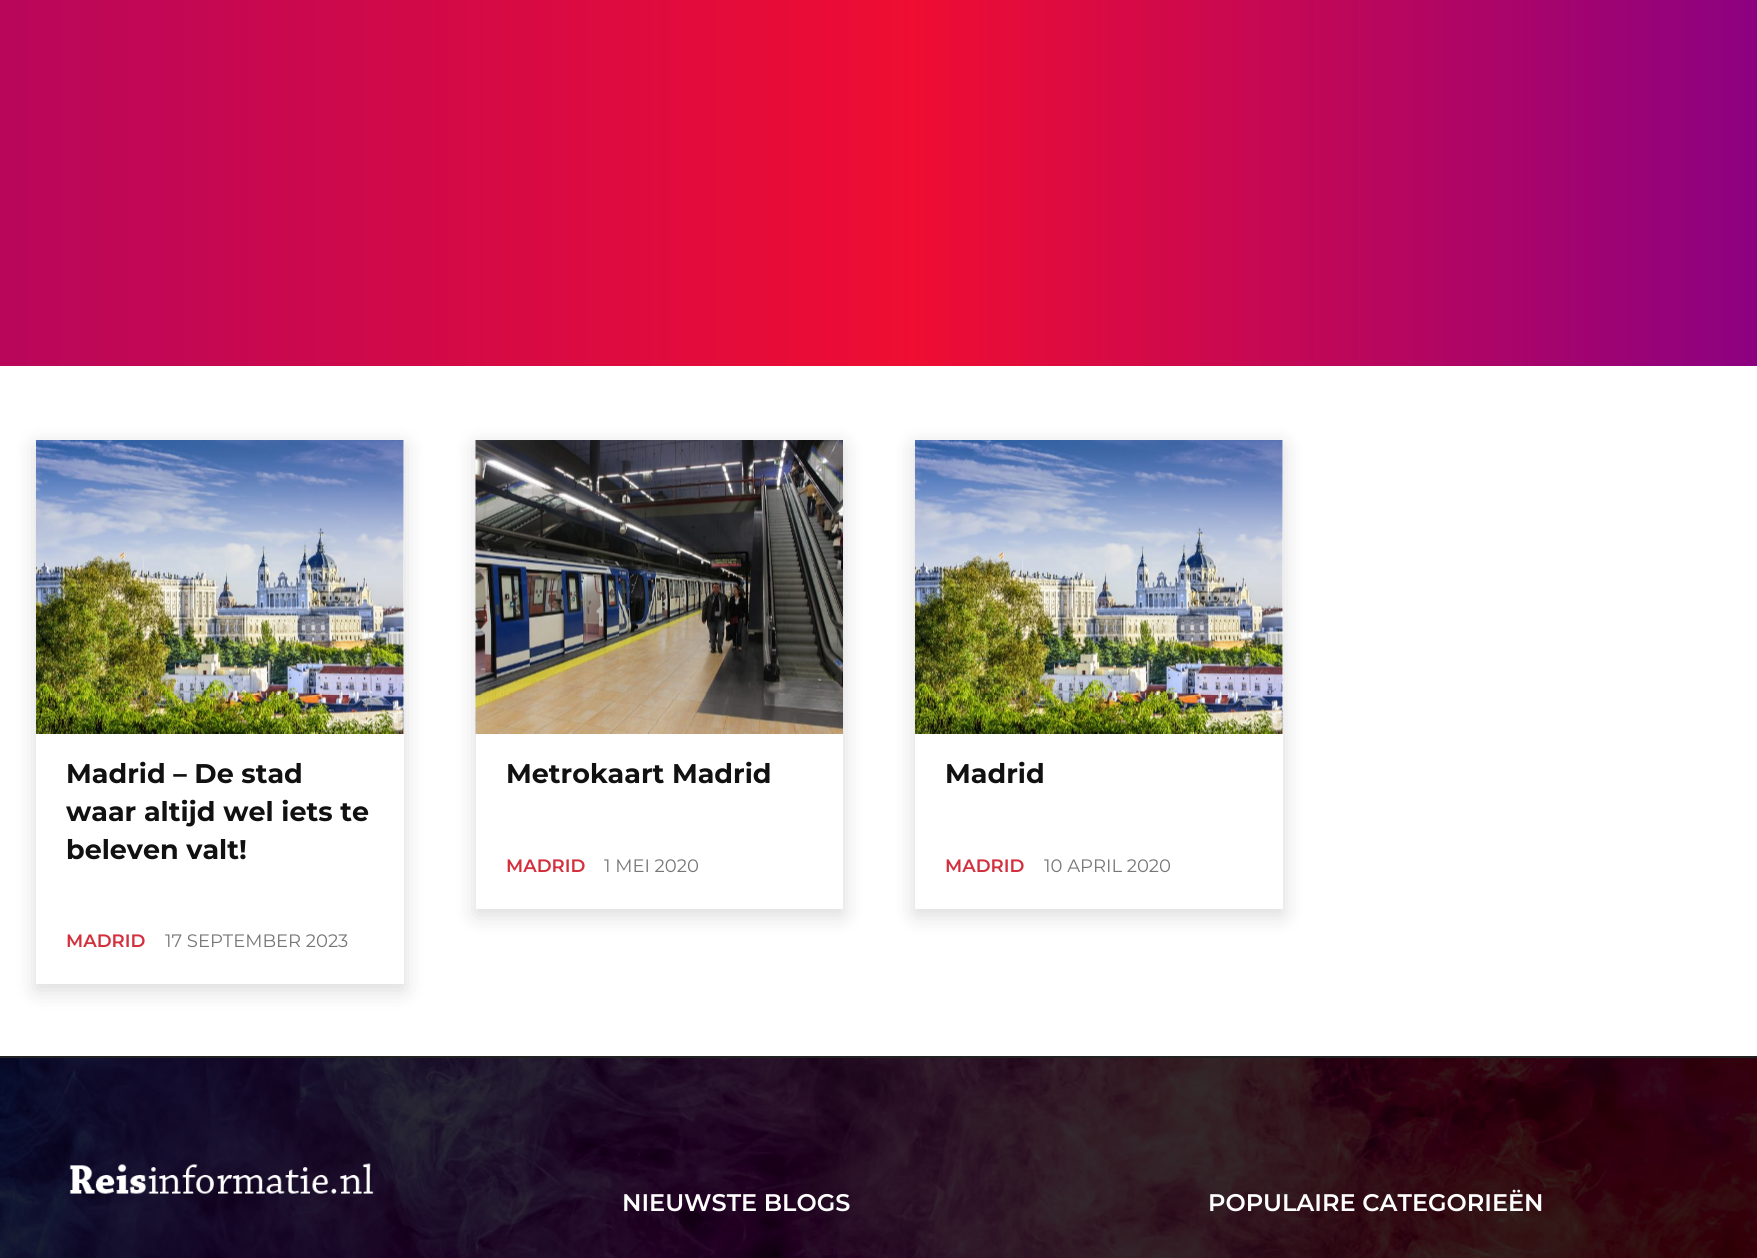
#include <cairo.h>
#include <math.h>
#include <stddef.h>


static void set_color(cairo_t *cr, unsigned color) {
    cairo_set_source_rgb(cr, (color >> 16) / 255.0, (color >> 8 & 255) / 255.0, (color & 255) / 255.0);
}

static void draw_text(cairo_t *cr, double x, double y, const char *s, const char *family, double size, int italic, int bold, unsigned color) {
    cairo_select_font_face(cr, family, italic ? CAIRO_FONT_SLANT_ITALIC : CAIRO_FONT_SLANT_NORMAL,
        bold ? CAIRO_FONT_WEIGHT_BOLD : CAIRO_FONT_WEIGHT_NORMAL);
    cairo_set_font_size(cr, size);
    set_color(cr, color);
    cairo_move_to(cr, x, y);
    cairo_show_text(cr, s);
}

static void fill_rect(cairo_t *cr, double x, double y, double w, double h, unsigned color) {
    set_color(cr, color);
    cairo_rectangle(cr, x, y, w, h);
    cairo_fill(cr);
}

static void rounded_rect(cairo_t *cr, double x, double y, double w, double h, double r) {
    cairo_new_sub_path(cr);
    cairo_arc(cr, x + w - r, y + h - r, r, 0, M_PI / 2);
    cairo_arc(cr, x + r, y + h - r, r, M_PI / 2, M_PI);
    cairo_arc(cr, x + r, y + r, r, M_PI, 1.5 * M_PI);
    cairo_arc(cr, x + w - r, y + r, r, 1.5 * M_PI, 2 * M_PI);
    cairo_close_path(cr);
}

static void draw_shadow(cairo_t *cr, double x, double y, double w, double h, double r, double blur, double alpha) {
    cairo_push_group_with_content(cr, CAIRO_CONTENT_ALPHA);
    cairo_set_operator(cr, CAIRO_OPERATOR_SOURCE);
    for (int i = 15; i >= -15 && fmin(w, h) + blur * i / 3 > 0; i -= 2) {
        double e = blur * i / 6;
        cairo_set_source_rgba(cr, 0, 0, 0, alpha * erfc((i - 1) / 8.5) / 2);
        rounded_rect(cr, x - e, y - e, w + 2 * e, h + 2 * e, fmax(0, fmin(r + e + blur * .6, fmin(w, h) / 2 + e)));
        cairo_fill(cr);
    }
    cairo_pattern_t *soft = cairo_pop_group(cr);
    cairo_mask(cr, soft);
    cairo_pattern_destroy(soft);
}

static void draw_image(cairo_t *cr, const char *path, double x, double y, double w, double h) {
    cairo_surface_t *image = cairo_image_surface_create_from_png(path);
    cairo_save(cr);
    cairo_set_source_surface(cr, image, x, y);
    cairo_rectangle(cr, x, y, w, h);
    cairo_fill(cr);
    cairo_restore(cr);
    cairo_surface_destroy(image);
}

int main(void) {
    cairo_surface_t *surface = cairo_image_surface_create(CAIRO_FORMAT_RGB24, 1757, 1258);
    cairo_t *cr = cairo_create(surface);
    cairo_font_options_t *options = cairo_font_options_create();
    cairo_font_options_set_hint_metrics(options, CAIRO_HINT_METRICS_OFF);
    cairo_font_options_set_hint_style(options, CAIRO_HINT_STYLE_NONE);
    cairo_set_font_options(cr, options);
    cairo_set_miter_limit(cr, 4);
    cairo_pattern_t *gradient;
    set_color(cr, 0xFFFFFF);
    cairo_paint(cr);
    gradient = cairo_pattern_create_linear(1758, 81, 0, 81);
    cairo_pattern_add_color_stop_rgba(gradient, 0, 0.549, 0.004, 0.506, 1);
    cairo_pattern_add_color_stop_rgba(gradient, 0.48, 0.937, 0.051, 0.196, 1);
    cairo_pattern_add_color_stop_rgba(gradient, 1, 0.725, 0.024, 0.357, 1);
    cairo_set_source(cr, gradient);
    cairo_pattern_destroy(gradient);
    cairo_rectangle(cr, 0, 0, 1757, 366);
    cairo_fill(cr);
    cairo_save(cr);
    cairo_set_fill_rule(cr, CAIRO_FILL_RULE_EVEN_ODD);
    cairo_new_path(cr);
    cairo_move_to(cr, 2, 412);
    cairo_line_to(cr, 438, 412);
    cairo_line_to(cr, 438, 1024);
    cairo_line_to(cr, 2, 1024);
    cairo_close_path(cr);
    cairo_move_to(cr, 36, 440);
    cairo_line_to(cr, 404, 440);
    cairo_line_to(cr, 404, 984);
    cairo_line_to(cr, 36, 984);
    cairo_close_path(cr);
    cairo_clip(cr);
    set_color(cr, 0x000000);
    draw_shadow(cr, 36, 446, 368, 544, 0, 11, 0.15);
    cairo_restore(cr);
    draw_image(cr, "assets/img1.png", 36, 440, 368, 294);
    draw_text(cr, 66, 783, "Madrid – De stad", "Montserrat", 27, 0, 1, 0x111111);
    draw_text(cr, 66, 821, "waar altijd wel iets te", "Montserrat", 27, 0, 1, 0x111111);
    draw_text(cr, 66, 859, "beleven valt!", "Montserrat", 27, 0, 1, 0x111111);
    draw_text(cr, 66, 947, "MADRID", "Montserrat SemiBold", 18, 0, 0, 0xD3303E);
    draw_text(cr, 165, 947, "17 SEPTEMBER 2023", "Montserrat", 18, 0, 0, 0x767676);
    cairo_save(cr);
    cairo_set_fill_rule(cr, CAIRO_FILL_RULE_EVEN_ODD);
    cairo_new_path(cr);
    cairo_move_to(cr, 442, 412);
    cairo_line_to(cr, 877, 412);
    cairo_line_to(cr, 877, 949);
    cairo_line_to(cr, 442, 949);
    cairo_close_path(cr);
    cairo_move_to(cr, 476, 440);
    cairo_line_to(cr, 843, 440);
    cairo_line_to(cr, 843, 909);
    cairo_line_to(cr, 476, 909);
    cairo_close_path(cr);
    cairo_clip(cr);
    set_color(cr, 0x000000);
    draw_shadow(cr, 476, 446, 367, 469, 0, 11, 0.15);
    cairo_restore(cr);
    draw_image(cr, "assets/img2.png", 475, 440, 368, 294);
    draw_text(cr, 506, 783, "Metrokaart Madrid", "Montserrat", 27, 0, 1, 0x111111);
    draw_text(cr, 506, 872, "MADRID", "Montserrat SemiBold", 18, 0, 0, 0xD3303E);
    draw_text(cr, 604, 872, "1 MEI 2020", "Montserrat", 18, 0, 0, 0x767676);
    cairo_save(cr);
    cairo_set_fill_rule(cr, CAIRO_FILL_RULE_EVEN_ODD);
    cairo_new_path(cr);
    cairo_move_to(cr, 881, 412);
    cairo_line_to(cr, 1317, 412);
    cairo_line_to(cr, 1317, 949);
    cairo_line_to(cr, 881, 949);
    cairo_close_path(cr);
    cairo_move_to(cr, 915, 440);
    cairo_line_to(cr, 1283, 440);
    cairo_line_to(cr, 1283, 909);
    cairo_line_to(cr, 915, 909);
    cairo_close_path(cr);
    cairo_clip(cr);
    set_color(cr, 0x000000);
    draw_shadow(cr, 915, 446, 368, 469, 0, 11, 0.15);
    cairo_restore(cr);
    draw_image(cr, "assets/img3.png", 915, 440, 368, 294);
    draw_text(cr, 945, 783, "Madrid", "Montserrat", 27, 0, 1, 0x111111);
    draw_text(cr, 945, 872, "MADRID", "Montserrat SemiBold", 18, 0, 0, 0xD3303E);
    draw_text(cr, 1044, 872, "10 APRIL 2020", "Montserrat", 18, 0, 0, 0x767676);
    draw_image(cr, "assets/img4.png", 0, 1058, 1757, 200);
    fill_rect(cr, 0, 1056, 1757, 2, 0x222222);
    draw_image(cr, "assets/img5.png", 69, 1163, 305, 31);
    draw_text(cr, 622, 1211, "NIEUWSTE BLOGS", "Montserrat SemiBold", 24, 0, 0, 0xFFFFFF);
    draw_text(cr, 1208, 1211, "POPULAIRE CATEGORIEËN", "Montserrat SemiBold", 24, 0, 0, 0xFFFFFF);
    cairo_surface_write_to_png(surface, "output.png");
    cairo_font_options_destroy(options);
    cairo_destroy(cr);
    cairo_surface_destroy(surface);
    return 0;
}
